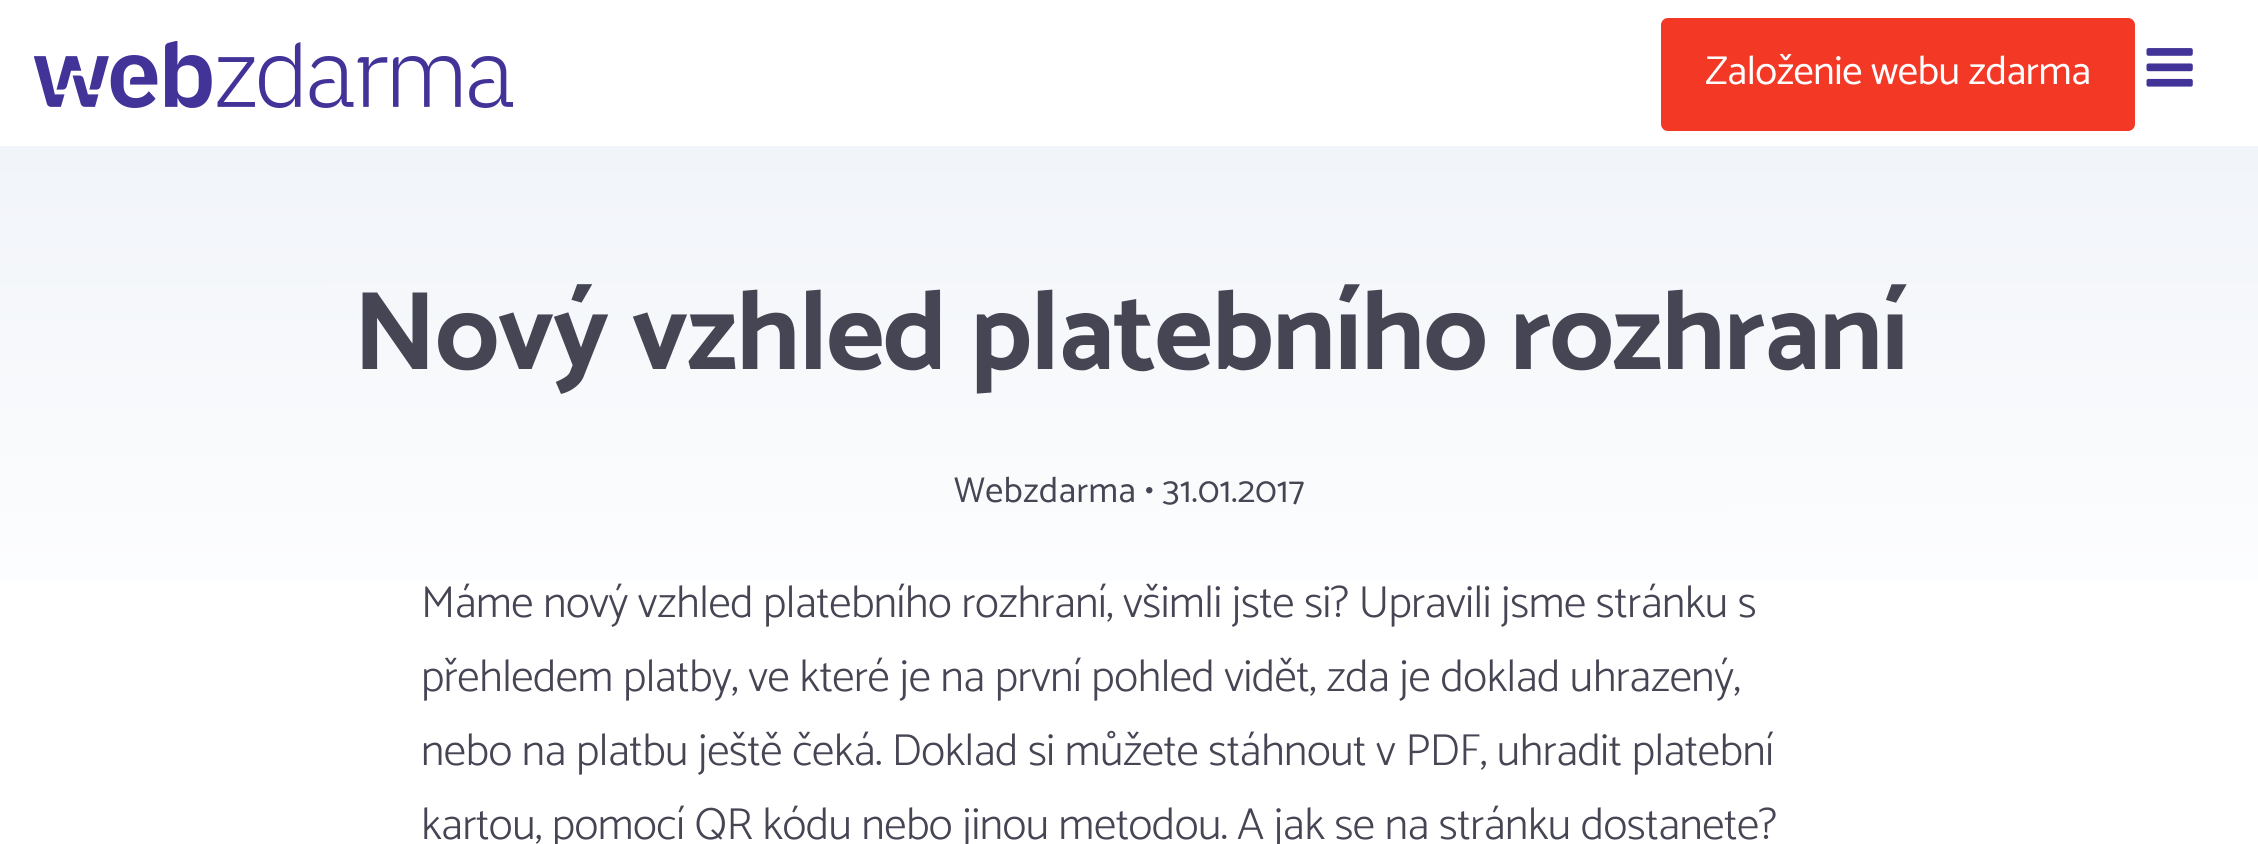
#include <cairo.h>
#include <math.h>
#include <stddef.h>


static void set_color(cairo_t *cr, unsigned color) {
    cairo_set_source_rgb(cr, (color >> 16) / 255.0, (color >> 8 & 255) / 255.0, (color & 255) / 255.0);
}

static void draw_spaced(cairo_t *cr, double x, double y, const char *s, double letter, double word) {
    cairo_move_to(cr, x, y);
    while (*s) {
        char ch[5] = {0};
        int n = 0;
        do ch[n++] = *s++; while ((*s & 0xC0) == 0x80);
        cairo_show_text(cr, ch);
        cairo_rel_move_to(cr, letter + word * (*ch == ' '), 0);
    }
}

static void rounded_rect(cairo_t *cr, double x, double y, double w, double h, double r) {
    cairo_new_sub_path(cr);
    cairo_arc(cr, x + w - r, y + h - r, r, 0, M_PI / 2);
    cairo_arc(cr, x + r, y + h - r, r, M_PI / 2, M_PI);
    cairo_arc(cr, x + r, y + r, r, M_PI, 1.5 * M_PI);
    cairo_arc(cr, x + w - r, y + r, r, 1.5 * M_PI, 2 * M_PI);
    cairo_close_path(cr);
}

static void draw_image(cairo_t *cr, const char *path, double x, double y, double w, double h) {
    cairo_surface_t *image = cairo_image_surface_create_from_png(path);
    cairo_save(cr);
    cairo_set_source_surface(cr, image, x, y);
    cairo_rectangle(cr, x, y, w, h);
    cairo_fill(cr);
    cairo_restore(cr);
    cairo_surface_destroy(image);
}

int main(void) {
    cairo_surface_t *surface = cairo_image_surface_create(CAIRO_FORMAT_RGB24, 2258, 844);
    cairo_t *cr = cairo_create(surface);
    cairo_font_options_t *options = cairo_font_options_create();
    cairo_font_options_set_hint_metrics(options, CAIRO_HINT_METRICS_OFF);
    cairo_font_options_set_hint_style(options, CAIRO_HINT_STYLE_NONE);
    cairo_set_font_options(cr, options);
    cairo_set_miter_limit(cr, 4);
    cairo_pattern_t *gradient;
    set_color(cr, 0xFFFFFF);
    cairo_paint(cr);
    gradient = cairo_pattern_create_linear(1129, 0, 1130, 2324);
    cairo_pattern_add_color_stop_rgba(gradient, 0, 0.929, 0.945, 0.969, 1);
    cairo_pattern_add_color_stop_rgba(gradient, 0.29, 1, 1, 1, 1);
    cairo_set_source(cr, gradient);
    cairo_pattern_destroy(gradient);
    cairo_rectangle(cr, 0, 146, 2258, 435);
    cairo_fill(cr);
    draw_image(cr, "assets/img1.png", 34, 41, 479, 67);
    set_color(cr, 0xF43826);
    rounded_rect(cr, 1661, 18, 474, 113, 7);
    cairo_fill(cr);
    cairo_select_font_face(cr, "Catamaran", CAIRO_FONT_SLANT_NORMAL, CAIRO_FONT_WEIGHT_NORMAL);
    cairo_set_font_size(cr, 40.5);
    set_color(cr, 0xFFFFFF);
    draw_spaced(cr, 1705, 84, "Založenie webu zdarma", -0.45, 0);
    draw_image(cr, "assets/img2.png", 2146, 48, 47, 39);
    cairo_select_font_face(cr, "Catamaran", CAIRO_FONT_SLANT_NORMAL, CAIRO_FONT_WEIGHT_BOLD);
    cairo_set_font_size(cr, 112.5);
    set_color(cr, 0x454554);
    draw_spaced(cr, 353, 369, "Nový vzhled platebního rozhraní", -1.4, 0);
    cairo_select_font_face(cr, "Catamaran", CAIRO_FONT_SLANT_NORMAL, CAIRO_FONT_WEIGHT_NORMAL);
    cairo_set_font_size(cr, 36);
    draw_spaced(cr, 954, 502, "Webzdarma • 31.01.2017", 0.4, 0);
    cairo_select_font_face(cr, "Catamaran Light", CAIRO_FONT_SLANT_NORMAL, CAIRO_FONT_WEIGHT_NORMAL);
    cairo_set_font_size(cr, 45);
    draw_spaced(cr, 421, 617, "Máme nový vzhled platebního rozhraní, všimli jste si? Upravili jsme stránku s", -0.45, 0);
    draw_spaced(cr, 421, 691, "přehledem platby, ve které je na první pohled vidět, zda je doklad uhrazený,", -0.45, 0);
    draw_spaced(cr, 421, 765, "nebo na platbu ještě čeká. Doklad si můžete stáhnout v PDF, uhradit platební", -0.45, 0);
    draw_spaced(cr, 421, 839, "kartou, pomocí QR kódu nebo jinou metodou. A jak se na stránku dostanete?", -0.45, 0);
    cairo_surface_write_to_png(surface, "output.png");
    cairo_font_options_destroy(options);
    cairo_destroy(cr);
    cairo_surface_destroy(surface);
    return 0;
}
